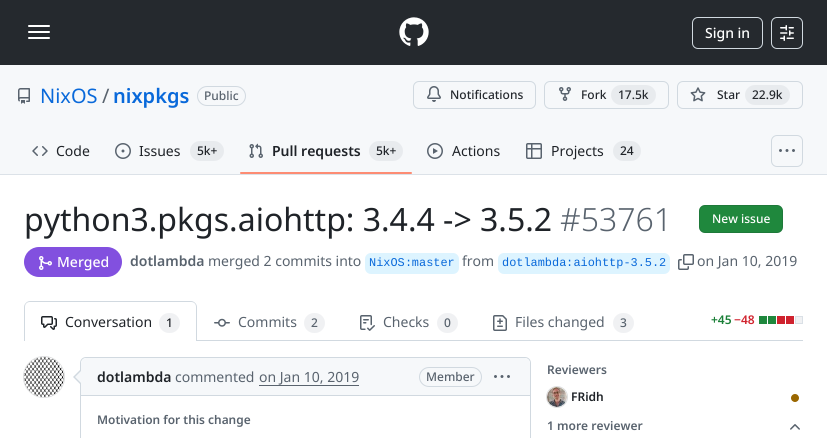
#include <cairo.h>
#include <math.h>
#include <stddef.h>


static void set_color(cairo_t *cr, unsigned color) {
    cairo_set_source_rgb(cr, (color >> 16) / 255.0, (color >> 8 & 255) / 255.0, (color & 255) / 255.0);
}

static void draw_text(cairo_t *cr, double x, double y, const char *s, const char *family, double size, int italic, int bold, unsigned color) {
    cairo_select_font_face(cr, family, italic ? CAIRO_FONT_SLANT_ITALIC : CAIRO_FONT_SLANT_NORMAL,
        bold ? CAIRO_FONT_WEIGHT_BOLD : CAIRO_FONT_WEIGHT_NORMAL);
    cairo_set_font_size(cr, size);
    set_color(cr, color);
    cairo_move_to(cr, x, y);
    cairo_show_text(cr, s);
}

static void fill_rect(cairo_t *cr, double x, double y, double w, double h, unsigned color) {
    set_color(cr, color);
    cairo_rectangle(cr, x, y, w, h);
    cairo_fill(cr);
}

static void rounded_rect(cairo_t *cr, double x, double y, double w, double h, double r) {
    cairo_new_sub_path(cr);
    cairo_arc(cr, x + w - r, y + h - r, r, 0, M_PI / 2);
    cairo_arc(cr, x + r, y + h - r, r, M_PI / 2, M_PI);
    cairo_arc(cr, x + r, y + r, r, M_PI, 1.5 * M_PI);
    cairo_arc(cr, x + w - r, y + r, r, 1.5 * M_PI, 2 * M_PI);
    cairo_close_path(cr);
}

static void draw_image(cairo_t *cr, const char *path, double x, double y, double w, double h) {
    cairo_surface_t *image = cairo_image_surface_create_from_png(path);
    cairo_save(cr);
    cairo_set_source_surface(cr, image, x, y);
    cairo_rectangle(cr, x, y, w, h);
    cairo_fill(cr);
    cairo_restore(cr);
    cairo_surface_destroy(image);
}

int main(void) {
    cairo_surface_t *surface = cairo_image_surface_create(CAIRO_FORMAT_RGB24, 827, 438);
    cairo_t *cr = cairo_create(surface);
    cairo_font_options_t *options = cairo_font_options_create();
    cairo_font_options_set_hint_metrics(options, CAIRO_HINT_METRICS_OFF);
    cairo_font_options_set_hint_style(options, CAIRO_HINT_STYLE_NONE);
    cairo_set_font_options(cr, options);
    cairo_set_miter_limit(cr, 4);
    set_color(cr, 0xFFFFFF);
    cairo_paint(cr);
    fill_rect(cr, 0, 0, 827, 65, 0x25292E);
    set_color(cr, 0xFFFFFF);
    rounded_rect(cr, 28, 25, 22, 2, 1);
    cairo_fill(cr);
    rounded_rect(cr, 28, 31, 22, 2, 1);
    cairo_fill(cr);
    rounded_rect(cr, 28, 37, 22, 2, 1);
    cairo_fill(cr);
    draw_image(cr, "assets/img1.png", 399, 17, 30, 29);
    rounded_rect(cr, 692.5, 17.5, 70, 31, 5.5);
    set_color(cr, 0xD1D9E0);
    cairo_set_line_width(cr, 1);
    cairo_stroke(cr);
    draw_text(cr, 705, 38, "Sign in", "Noto Sans Medium", 14, 0, 0, 0xFFFFFF);
    rounded_rect(cr, 771.5, 17.5, 31, 31, 5.5);
    set_color(cr, 0xD1D9E0);
    cairo_stroke(cr);
    draw_image(cr, "assets/img2.png", 780, 25, 14, 16);
    fill_rect(cr, 0, 65, 827, 109, 0xF6F8FA);
    draw_image(cr, "assets/img3.png", 18, 88, 12, 16);
    draw_text(cr, 40, 103, "NixOS", "Noto Sans", 20, 0, 0, 0x0969DA);
    draw_text(cr, 102, 103, "/", "Noto Sans", 20, 0, 0, 0x59636E);
    draw_text(cr, 113, 103, "nixpkgs", "Noto Sans SemiBold", 20, 0, 0, 0x0969DA);
    rounded_rect(cr, 197.5, 86.5, 48, 19, 9.5);
    set_color(cr, 0xD1D9E0);
    cairo_stroke(cr);
    draw_text(cr, 204, 100, "Public", "Noto Sans Medium", 12, 0, 0, 0x59636E);
    rounded_rect(cr, 413.5, 81.5, 122, 27, 5.5);
    set_color(cr, 0xD1D9E0);
    cairo_stroke(cr);
    draw_image(cr, "assets/img4.png", 427, 86, 14, 16);
    draw_text(cr, 450, 99, "Notifications", "Noto Sans Medium", 12, 0, 0, 0x25292E);
    rounded_rect(cr, 544.5, 81.5, 124, 27, 5.5);
    set_color(cr, 0xD1D9E0);
    cairo_stroke(cr);
    draw_image(cr, "assets/img5.png", 559, 87, 12, 14);
    draw_text(cr, 581, 99, "Fork", "Noto Sans Medium", 12, 0, 0, 0x25292E);
    set_color(cr, 0xE8EBEE);
    rounded_rect(cr, 611, 85, 45, 20, 10);
    cairo_fill(cr);
    draw_text(cr, 618, 99, "17.5k", "Noto Sans Medium", 12, 0, 0, 0x25292E);
    rounded_rect(cr, 677.5, 81.5, 125, 27, 5.5);
    set_color(cr, 0xD1D9E0);
    cairo_stroke(cr);
    draw_image(cr, "assets/img6.png", 690, 87, 16, 15);
    draw_text(cr, 717, 99, "Star", "Noto Sans Medium", 12, 0, 0, 0x25292E);
    set_color(cr, 0xE8EBEE);
    rounded_rect(cr, 745, 85, 45, 20, 10);
    cairo_fill(cr);
    draw_text(cr, 752, 99, "22.9k", "Noto Sans Medium", 12, 0, 0, 0x25292E);
    fill_rect(cr, 0, 174, 827, 1, 0xDCE2E8);
    draw_image(cr, "assets/img7.png", 32, 146, 16, 10);
    draw_text(cr, 56, 156, "Code", "Noto Sans", 14, 0, 0, 0x1F2328);
    draw_image(cr, "assets/img8.png", 115, 143, 16, 16);
    draw_text(cr, 139, 156, "Issues", "Noto Sans", 14, 0, 0, 0x1F2328);
    set_color(cr, 0xE8EBEE);
    rounded_rect(cr, 190, 141, 34, 20, 10);
    cairo_fill(cr);
    draw_text(cr, 197, 155, "5k+", "Noto Sans Medium", 12, 0, 0, 0x1F2328);
    draw_image(cr, "assets/img9.png", 249, 143, 14, 15);
    draw_text(cr, 272, 156, "Pull requests", "Noto Sans SemiBold", 14, 0, 0, 0x1F2328);
    set_color(cr, 0xE8EBEE);
    rounded_rect(cr, 369, 141, 34, 20, 10);
    cairo_fill(cr);
    draw_text(cr, 376, 155, "5k+", "Noto Sans Medium", 12, 0, 0, 0x1F2328);
    set_color(cr, 0xFD8C73);
    rounded_rect(cr, 240, 172, 172, 2, 1);
    cairo_fill(cr);
    draw_image(cr, "assets/img10.png", 427, 143, 16, 16);
    draw_text(cr, 452, 156, "Actions", "Noto Sans", 14, 0, 0, 0x1F2328);
    draw_image(cr, "assets/img11.png", 526, 143, 16, 16);
    draw_text(cr, 551, 156, "Projects", "Noto Sans", 14, 0, 0, 0x1F2328);
    set_color(cr, 0xE8EBEE);
    rounded_rect(cr, 613, 141, 28, 20, 10);
    cairo_fill(cr);
    draw_text(cr, 620, 155, "24", "Noto Sans Medium", 12, 0, 0, 0x1F2328);
    rounded_rect(cr, 771.5, 135.5, 31, 31, 5.5);
    set_color(cr, 0xD1D9E0);
    cairo_stroke(cr);
    draw_image(cr, "assets/img12.png", 779, 149, 16, 3);
    draw_text(cr, 24, 231, "python3.pkgs.aiohttp: 3.4.4 -> 3.5.2", "Noto Sans", 32, 0, 0, 0x1F2328);
    draw_text(cr, 560, 231, "#53761", "Noto Sans Light", 32, 0, 0, 0x59636E);
    set_color(cr, 0x1F883D);
    rounded_rect(cr, 699, 205, 84, 28, 6);
    cairo_fill(cr);
    rounded_rect(cr, 699.5, 205.5, 83, 27, 5.5);
    cairo_set_source_rgba(cr, 0.122, 0.137, 0.157, 0.15);
    cairo_stroke(cr);
    draw_text(cr, 712, 223, "New issue", "Noto Sans Medium", 12, 0, 0, 0xFFFFFF);
    set_color(cr, 0x8250DF);
    rounded_rect(cr, 24, 247, 98, 30, 15);
    cairo_fill(cr);
    draw_image(cr, "assets/img13.png", 39, 256, 13, 14);
    draw_text(cr, 57, 267, "Merged", "Noto Sans Medium", 14, 0, 0, 0xFFFFFF);
    draw_text(cr, 130, 266, "dotlambda", "Noto Sans SemiBold", 14, 0, 0, 0x59636E);
    draw_text(cr, 208, 266, "merged 2 commits into", "Noto Sans", 14, 0, 0, 0x59636E);
    set_color(cr, 0xDDF4FF);
    rounded_rect(cr, 365, 253, 94, 21, 6);
    cairo_fill(cr);
    draw_text(cr, 405, 266, ":", "Liberation Mono", 11.9, 0, 0, 0x0969DA);
    draw_text(cr, 369, 266, "NixOS master", "Liberation Mono", 11.9, 0, 0, 0x0969DA);
    draw_text(cr, 462, 266, "from", "Noto Sans", 14, 0, 0, 0x59636E);
    set_color(cr, 0xDDF4FF);
    rounded_rect(cr, 498, 253, 172, 21, 6);
    cairo_fill(cr);
    draw_text(cr, 566, 266, ":", "Liberation Mono", 11.9, 0, 0, 0x0969DA);
    draw_text(cr, 502, 266, "dotlambda aiohttp-3.5.2", "Liberation Mono", 11.9, 0, 0, 0x0969DA);
    draw_image(cr, "assets/img14.png", 678, 254, 16, 16);
    draw_text(cr, 697, 266, "on Jan 10, 2019", "Noto Sans", 14, 0, 0, 0x59636E);
    fill_rect(cr, 197, 340, 606, 1, 0xD1D9E0);
    cairo_set_fill_rule(cr, CAIRO_FILL_RULE_EVEN_ODD);
    cairo_new_path(cr);
    cairo_move_to(cr, 30, 301);
    cairo_line_to(cr, 191, 301);
    cairo_curve_to(cr, 194, 301, 197, 304, 197, 307);
    cairo_line_to(cr, 197, 341);
    cairo_line_to(cr, 24, 341);
    cairo_line_to(cr, 24, 307);
    cairo_curve_to(cr, 24, 304, 27, 301, 30, 301);
    cairo_close_path(cr);
    cairo_move_to(cr, 30, 302);
    cairo_line_to(cr, 191, 302);
    cairo_curve_to(cr, 194, 302, 196, 304, 196, 307);
    cairo_line_to(cr, 196, 341);
    cairo_line_to(cr, 25, 341);
    cairo_line_to(cr, 25, 307);
    cairo_curve_to(cr, 25, 304, 27, 302, 30, 302);
    cairo_close_path(cr);
    cairo_fill(cr);
    draw_image(cr, "assets/img15.png", 41, 316, 16, 14);
    draw_text(cr, 65, 327, "Conversation", "Noto Sans", 14, 0, 0, 0x1F2328);
    set_color(cr, 0xF0F1F3);
    rounded_rect(cr, 159, 313, 21, 20, 10);
    cairo_fill(cr);
    draw_text(cr, 166, 327, "1", "Noto Sans Medium", 12, 0, 0, 0x1F2328);
    draw_image(cr, "assets/img16.png", 214, 318, 16, 9);
    draw_text(cr, 238, 327, "Commits", "Noto Sans", 14, 0, 0, 0x59636E);
    set_color(cr, 0xF0F1F3);
    rounded_rect(cr, 304, 313, 21, 20, 10);
    cairo_fill(cr);
    draw_text(cr, 311, 327, "2", "Noto Sans Medium", 12, 0, 0, 0x59636E);
    draw_image(cr, "assets/img17.png", 360, 315, 15, 16);
    draw_text(cr, 383, 327, "Checks", "Noto Sans", 14, 0, 0, 0x59636E);
    set_color(cr, 0xF0F1F3);
    rounded_rect(cr, 437, 313, 21, 20, 10);
    cairo_fill(cr);
    draw_text(cr, 444, 327, "0", "Noto Sans Medium", 12, 0, 0, 0x59636E);
    draw_image(cr, "assets/img18.png", 493, 315, 14, 16);
    draw_text(cr, 515, 327, "Files changed", "Noto Sans", 14, 0, 0, 0x59636E);
    set_color(cr, 0xF0F1F3);
    rounded_rect(cr, 613, 313, 21, 20, 10);
    cairo_fill(cr);
    draw_text(cr, 620, 327, "3", "Noto Sans Medium", 12, 0, 0, 0x59636E);
    draw_text(cr, 711, 324, "+45", "Noto Sans SemiBold", 12, 0, 0, 0x1A7F37);
    draw_text(cr, 734, 324, "−48", "Noto Sans SemiBold", 12, 0, 0, 0xD1242F);
    fill_rect(cr, 759, 316, 8, 8, 0x1F883D);
    fill_rect(cr, 768, 316, 8, 8, 0x1F883D);
    fill_rect(cr, 777, 316, 8, 8, 0xCF222E);
    fill_rect(cr, 786, 316, 8, 8, 0xCF222E);
    set_color(cr, 0xF0F1F3);
    cairo_rectangle(cr, 795.5, 316.5, 7, 7);
    cairo_fill_preserve(cr);
    set_color(cr, 0xDAE0E6);
    cairo_stroke(cr);
    cairo_arc(cr, 44, 377, 20.5, 0, 2 * M_PI);
    set_color(cr, 0xDDDEDF);
    cairo_stroke(cr);
    set_color(cr, 0xFFFFFF);
    cairo_arc(cr, 44, 377, 20, 0, 2 * M_PI);
    cairo_fill(cr);
    draw_image(cr, "assets/img19.png", 24, 357, 40, 40);
    rounded_rect(cr, 80.5, 357.5, 450, 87, 5.5);
    set_color(cr, 0xD1D9E0);
    cairo_stroke(cr);
    cairo_set_fill_rule(cr, CAIRO_FILL_RULE_WINDING);
    cairo_new_path(cr);
    cairo_move_to(cr, 73, 377);
    cairo_line_to(cr, 81, 385);
    cairo_line_to(cr, 81, 369);
    cairo_close_path(cr);
    cairo_fill(cr);
    set_color(cr, 0xF6F8FA);
    cairo_new_path(cr);
    cairo_move_to(cr, 87, 358);
    cairo_line_to(cr, 524, 358);
    cairo_curve_to(cr, 527.5, 358, 530, 360.5, 530, 364);
    cairo_line_to(cr, 530, 396);
    cairo_line_to(cr, 81, 396);
    cairo_line_to(cr, 81, 364);
    cairo_curve_to(cr, 81, 360.5, 83.5, 358, 87, 358);
    cairo_close_path(cr);
    cairo_fill(cr);
    cairo_new_path(cr);
    cairo_move_to(cr, 75, 377);
    cairo_line_to(cr, 83, 385);
    cairo_line_to(cr, 83, 369);
    cairo_close_path(cr);
    cairo_fill(cr);
    fill_rect(cr, 81, 395, 449, 1, 0xD1D9E0);
    draw_text(cr, 97, 382, "dotlambda", "Noto Sans SemiBold", 14, 0, 0, 0x1F2328);
    draw_text(cr, 175, 382, "commented", "Noto Sans", 14, 0, 0, 0x59636E);
    draw_text(cr, 259, 382, "on Jan 10, 2019", "Noto Sans", 14, 0, 0, 0x59636E);
    fill_rect(cr, 259, 385, 100, 1, 0x59636E);
    rounded_rect(cr, 419.5, 367.5, 62, 19, 9.5);
    set_color(cr, 0xD1D9E0);
    cairo_stroke(cr);
    draw_text(cr, 426, 381, "Member", "Noto Sans Medium", 12, 0, 0, 0x59636E);
    draw_image(cr, "assets/img12.png", 494, 375, 16, 3);
    draw_text(cr, 97, 424, "Motivation for this change", "Noto Sans SemiBold", 11.9, 0, 0, 0x59636E);
    draw_text(cr, 547, 374, "Reviewers", "Noto Sans SemiBold", 12, 0, 0, 0x59636E);
    cairo_new_path(cr);
    cairo_arc(cr, 557, 397, 10.5, 0, 2 * M_PI);
    set_color(cr, 0xDDDEDF);
    cairo_stroke(cr);
    set_color(cr, 0xFFFFFF);
    cairo_arc(cr, 557, 397, 10, 0, 2 * M_PI);
    cairo_fill(cr);
    draw_image(cr, "assets/img20.png", 547, 387, 20, 20);
    draw_text(cr, 571, 401, "FRidh", "Noto Sans SemiBold", 12, 0, 0, 0x1F2328);
    draw_image(cr, "assets/img21.png", 791, 394, 8, 8);
    draw_text(cr, 547, 430, "1 more reviewer", "Noto Sans SemiBold", 12, 0, 0, 0x59636E);
    draw_image(cr, "assets/img22.png", 790, 424, 10, 6);
    cairo_surface_write_to_png(surface, "output.png");
    cairo_font_options_destroy(options);
    cairo_destroy(cr);
    cairo_surface_destroy(surface);
    return 0;
}
